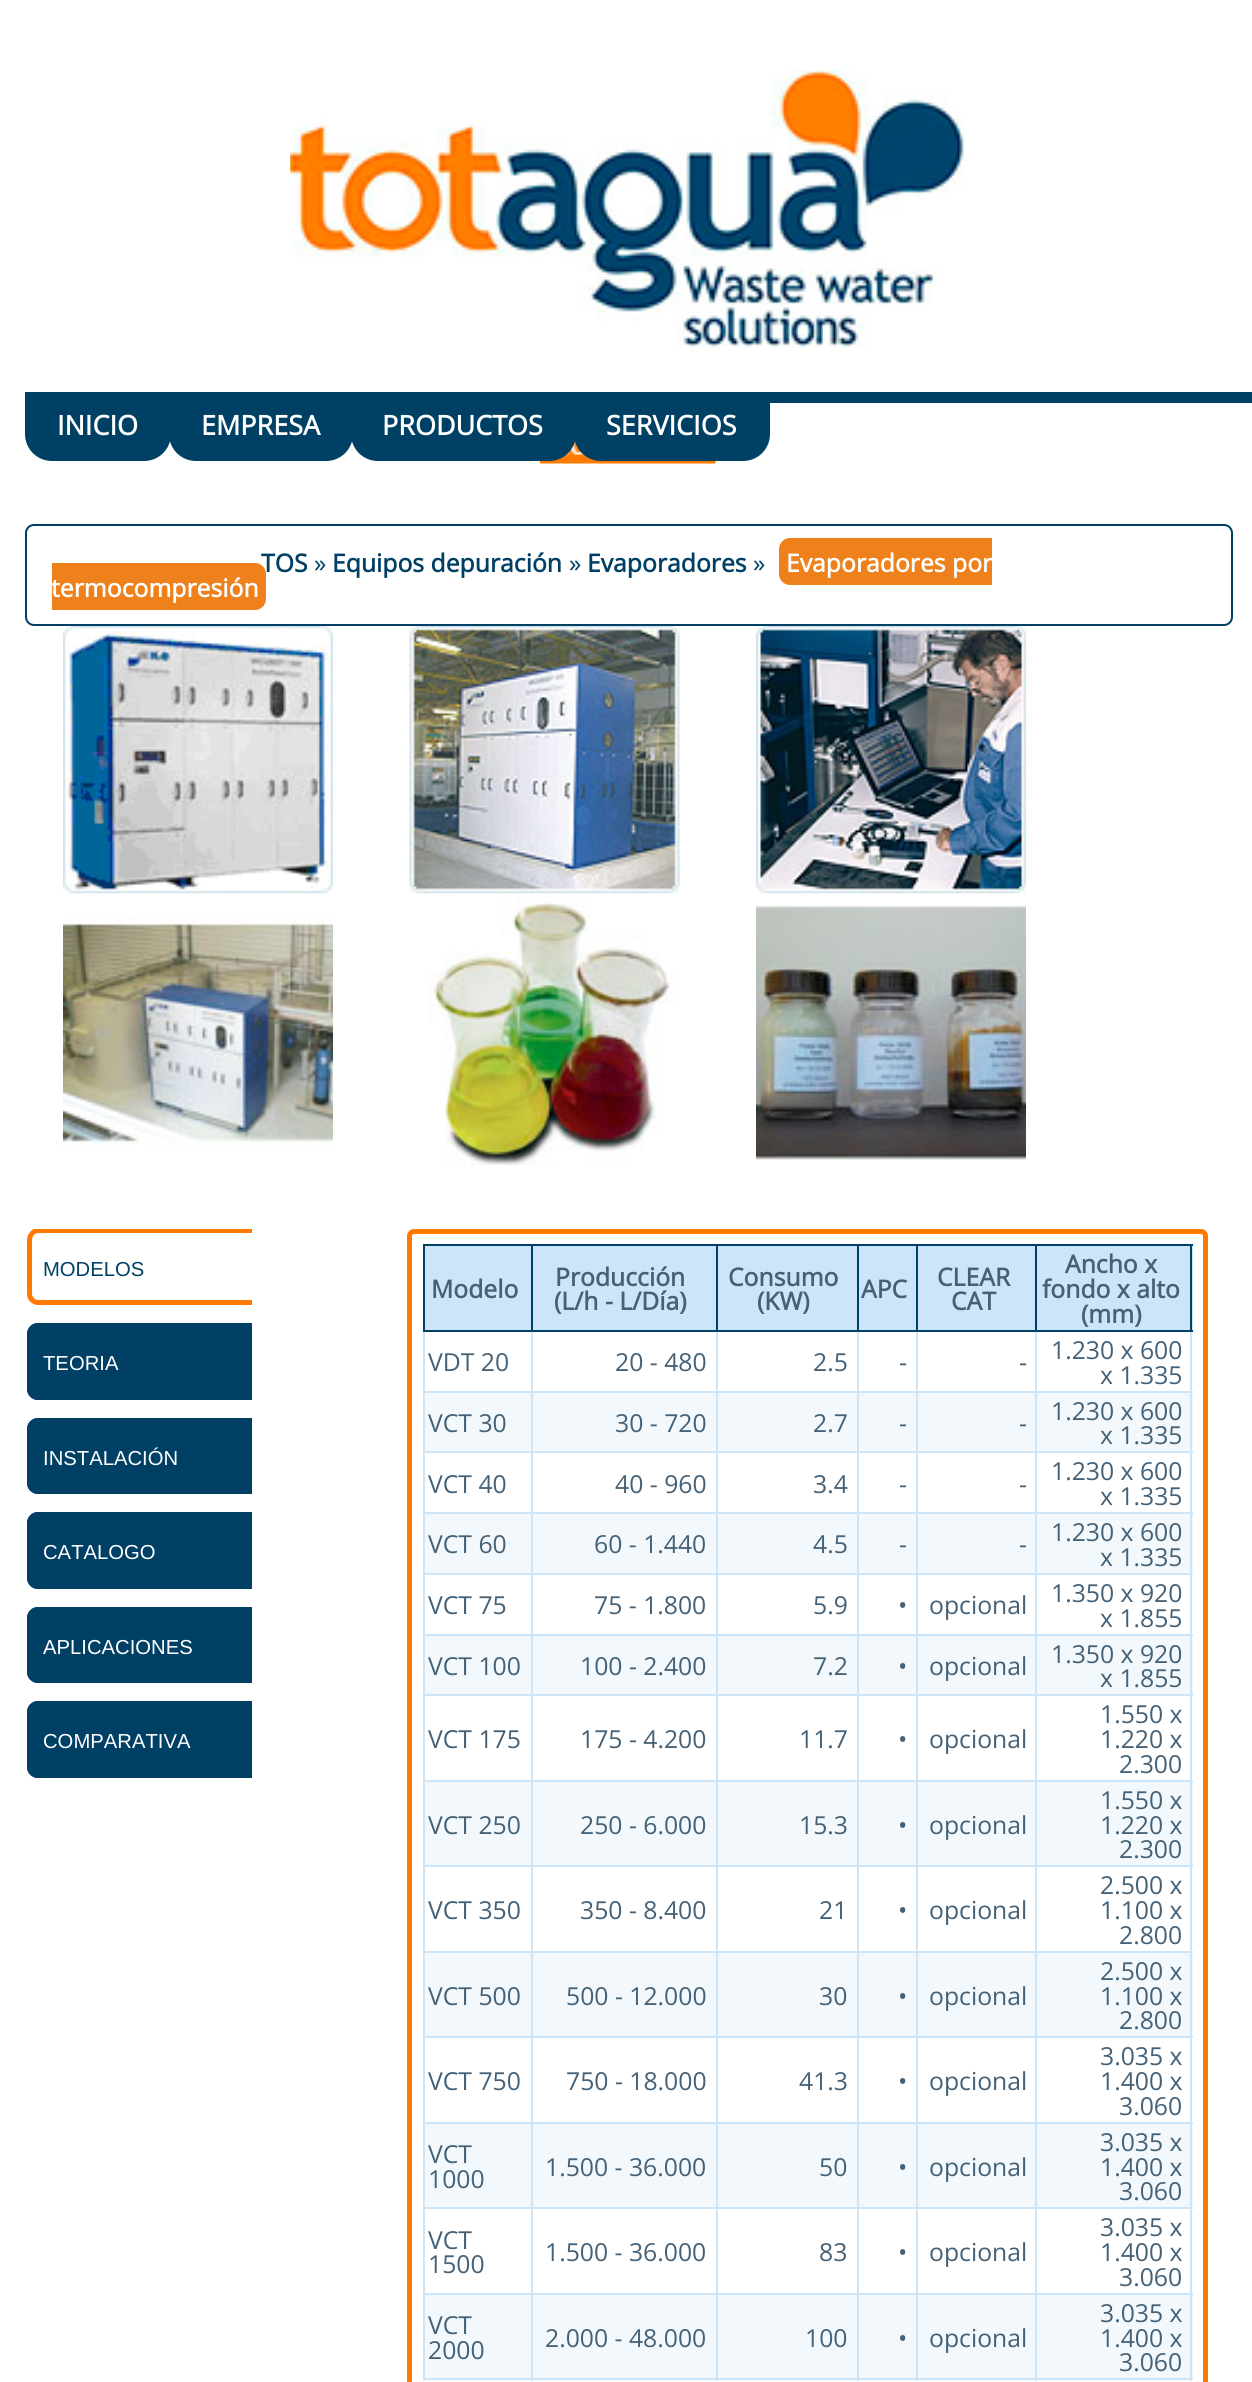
#include <cairo.h>
#include <math.h>
#include <stddef.h>


static void set_color(cairo_t *cr, unsigned color) {
    cairo_set_source_rgb(cr, (color >> 16) / 255.0, (color >> 8 & 255) / 255.0, (color & 255) / 255.0);
}

static void draw_text(cairo_t *cr, double x, double y, const char *s, const char *family, double size, int italic, int bold, unsigned color) {
    cairo_select_font_face(cr, family, italic ? CAIRO_FONT_SLANT_ITALIC : CAIRO_FONT_SLANT_NORMAL,
        bold ? CAIRO_FONT_WEIGHT_BOLD : CAIRO_FONT_WEIGHT_NORMAL);
    cairo_set_font_size(cr, size);
    set_color(cr, color);
    cairo_move_to(cr, x, y);
    cairo_show_text(cr, s);
}

static void fill_rect(cairo_t *cr, double x, double y, double w, double h, unsigned color) {
    set_color(cr, color);
    cairo_rectangle(cr, x, y, w, h);
    cairo_fill(cr);
}

static void rounded_rect(cairo_t *cr, double x, double y, double w, double h, double r) {
    cairo_new_sub_path(cr);
    cairo_arc(cr, x + w - r, y + h - r, r, 0, M_PI / 2);
    cairo_arc(cr, x + r, y + h - r, r, M_PI / 2, M_PI);
    cairo_arc(cr, x + r, y + r, r, M_PI, 1.5 * M_PI);
    cairo_arc(cr, x + w - r, y + r, r, 1.5 * M_PI, 2 * M_PI);
    cairo_close_path(cr);
}

static void draw_image(cairo_t *cr, const char *path, double x, double y, double w, double h) {
    cairo_surface_t *image = cairo_image_surface_create_from_png(path);
    cairo_save(cr);
    cairo_set_source_surface(cr, image, x, y);
    cairo_rectangle(cr, x, y, w, h);
    cairo_fill(cr);
    cairo_restore(cr);
    cairo_surface_destroy(image);
}

int main(void) {
    cairo_surface_t *surface = cairo_image_surface_create(CAIRO_FORMAT_RGB24, 1252, 2382);
    cairo_t *cr = cairo_create(surface);
    cairo_font_options_t *options = cairo_font_options_create();
    cairo_font_options_set_hint_metrics(options, CAIRO_HINT_METRICS_OFF);
    cairo_font_options_set_hint_style(options, CAIRO_HINT_STYLE_NONE);
    cairo_set_font_options(cr, options);
    cairo_set_miter_limit(cr, 4);
    set_color(cr, 0xFFFFFF);
    cairo_paint(cr);
    draw_image(cr, "assets/img1.png", 290, 69, 675, 278);
    draw_image(cr, "assets/img2.png", 540, 441, 176, 23);
    fill_rect(cr, 770, 392, 482, 11, 0x004065);
    cairo_new_path(cr);
    cairo_move_to(cr, 25, 392);
    cairo_line_to(cr, 171, 392);
    cairo_line_to(cr, 171, 434);
    cairo_curve_to(cr, 171, 449, 159, 461, 144, 461);
    cairo_line_to(cr, 52, 461);
    cairo_curve_to(cr, 37, 461, 25, 449, 25, 434);
    cairo_close_path(cr);
    cairo_fill(cr);
    draw_text(cr, 57, 435, "INICIO", "Open Sans", 27, 0, 1, 0xFFFFFF);
    set_color(cr, 0x004065);
    cairo_new_path(cr);
    cairo_move_to(cr, 169, 392);
    cairo_line_to(cr, 353, 392);
    cairo_line_to(cr, 353, 434);
    cairo_curve_to(cr, 353, 449, 341, 461, 326, 461);
    cairo_line_to(cr, 196, 461);
    cairo_curve_to(cr, 181, 461, 169, 449, 169, 434);
    cairo_close_path(cr);
    cairo_fill(cr);
    draw_text(cr, 201, 435, "EMPRESA", "Open Sans", 27, 0, 1, 0xFFFFFF);
    set_color(cr, 0x004065);
    cairo_new_path(cr);
    cairo_move_to(cr, 351, 392);
    cairo_line_to(cr, 576, 392);
    cairo_line_to(cr, 576, 434);
    cairo_curve_to(cr, 576, 449, 564, 461, 549, 461);
    cairo_line_to(cr, 378, 461);
    cairo_curve_to(cr, 363, 461, 351, 449, 351, 434);
    cairo_close_path(cr);
    cairo_fill(cr);
    draw_text(cr, 382, 435, "PRODUCTOS", "Open Sans", 27, 0, 1, 0xFFFFFF);
    set_color(cr, 0x004065);
    cairo_new_path(cr);
    cairo_move_to(cr, 574, 392);
    cairo_line_to(cr, 770, 392);
    cairo_line_to(cr, 770, 434);
    cairo_curve_to(cr, 770, 449, 758, 461, 743, 461);
    cairo_line_to(cr, 601, 461);
    cairo_curve_to(cr, 586, 461, 574, 449, 574, 434);
    cairo_close_path(cr);
    cairo_fill(cr);
    draw_text(cr, 606, 435, "SERVICIOS", "Open Sans", 27, 0, 1, 0xFFFFFF);
    rounded_rect(cr, 26, 525, 1206, 100, 8);
    set_color(cr, 0x004065);
    cairo_stroke(cr);
    draw_text(cr, 261, 572, "TOS", "Open Sans", 24.75, 0, 1, 0x004065);
    draw_text(cr, 314, 572, "»", "Open Sans", 24.75, 0, 0, 0x004065);
    draw_text(cr, 332, 572, "Equipos depuración", "Open Sans", 24.75, 0, 1, 0x004065);
    draw_text(cr, 569, 572, "»", "Open Sans", 24.75, 0, 0, 0x004065);
    draw_text(cr, 587, 572, "Evaporadores", "Open Sans", 24.75, 0, 1, 0x004065);
    draw_text(cr, 753, 572, "»", "Open Sans", 24.75, 0, 0, 0x004065);
    set_color(cr, 0xEE811B);
    cairo_new_path(cr);
    cairo_move_to(cr, 790, 538);
    cairo_line_to(cr, 992, 538);
    cairo_line_to(cr, 992, 585);
    cairo_line_to(cr, 790, 585);
    cairo_curve_to(cr, 784, 585, 779, 580, 779, 574);
    cairo_line_to(cr, 779, 549);
    cairo_curve_to(cr, 779, 543, 784, 538, 790, 538);
    cairo_close_path(cr);
    cairo_fill(cr);
    draw_text(cr, 786, 572, "Evaporadores por", "Open Sans", 24.75, 0, 1, 0xFFFFFF);
    set_color(cr, 0xEE811B);
    cairo_new_path(cr);
    cairo_move_to(cr, 52, 563);
    cairo_line_to(cr, 255, 563);
    cairo_curve_to(cr, 261, 563, 266, 568, 266, 574);
    cairo_line_to(cr, 266, 599);
    cairo_curve_to(cr, 266, 605, 261, 610, 255, 610);
    cairo_line_to(cr, 52, 610);
    cairo_close_path(cr);
    cairo_fill(cr);
    draw_text(cr, 51, 597, "termocompresión", "Open Sans", 24.75, 0, 1, 0xFFFFFF);
    draw_image(cr, "assets/img3.png", 63, 626, 270, 268);
    draw_image(cr, "assets/img4.png", 409, 626, 271, 268);
    draw_image(cr, "assets/img5.png", 756, 626, 270, 268);
    draw_image(cr, "assets/img6.png", 63, 916, 270, 234);
    draw_image(cr, "assets/img7.png", 427, 897, 252, 269);
    draw_image(cr, "assets/img8.png", 756, 905, 270, 255);
    cairo_save(cr);
    cairo_rectangle(cr, 27, 1229, 225, 567);
    cairo_clip(cr);
    set_color(cr, 0xFF7900);
    cairo_set_fill_rule(cr, CAIRO_FILL_RULE_EVEN_ODD);
    cairo_new_path(cr);
    cairo_move_to(cr, 38, 1228);
    cairo_line_to(cr, 279, 1228);
    cairo_line_to(cr, 279, 1305);
    cairo_line_to(cr, 38, 1305);
    cairo_curve_to(cr, 32, 1305, 27, 1300, 27, 1294);
    cairo_line_to(cr, 27, 1240);
    cairo_curve_to(cr, 27, 1234, 32, 1228, 38, 1228);
    cairo_close_path(cr);
    cairo_move_to(cr, 38, 1233);
    cairo_line_to(cr, 279, 1233);
    cairo_line_to(cr, 279, 1300);
    cairo_line_to(cr, 38, 1300);
    cairo_curve_to(cr, 35, 1300, 32, 1297, 32, 1294);
    cairo_line_to(cr, 32, 1240);
    cairo_curve_to(cr, 32, 1236, 35, 1233, 38, 1233);
    cairo_close_path(cr);
    cairo_fill(cr);
    cairo_restore(cr);
    draw_text(cr, 43, 1276, "MODELOS", "Liberation Sans", 20.25, 0, 0, 0x004065);
    cairo_new_path(cr);
    cairo_move_to(cr, 38, 1323);
    cairo_line_to(cr, 252, 1323);
    cairo_line_to(cr, 252, 1400);
    cairo_line_to(cr, 38, 1400);
    cairo_curve_to(cr, 32, 1400, 27, 1395, 27, 1389);
    cairo_line_to(cr, 27, 1334);
    cairo_curve_to(cr, 27, 1328, 32, 1323, 38, 1323);
    cairo_close_path(cr);
    cairo_fill(cr);
    cairo_save(cr);
    cairo_rectangle(cr, 27, 1229, 225, 567);
    cairo_clip(cr);
    rounded_rect(cr, 29.5, 1325.5, 252, 72, 8.5);
    cairo_set_line_width(cr, 5);
    cairo_stroke(cr);
    cairo_restore(cr);
    draw_text(cr, 43, 1370, "TEORIA", "Liberation Sans", 20.25, 0, 0, 0xFFFFFF);
    set_color(cr, 0x004065);
    cairo_new_path(cr);
    cairo_move_to(cr, 38, 1418);
    cairo_line_to(cr, 252, 1418);
    cairo_line_to(cr, 252, 1494);
    cairo_line_to(cr, 38, 1494);
    cairo_curve_to(cr, 32, 1494, 27, 1489, 27, 1483);
    cairo_line_to(cr, 27, 1429);
    cairo_curve_to(cr, 27, 1423, 32, 1418, 38, 1418);
    cairo_close_path(cr);
    cairo_fill(cr);
    cairo_save(cr);
    cairo_rectangle(cr, 27, 1229, 225, 567);
    cairo_clip(cr);
    rounded_rect(cr, 29.5, 1420.5, 252, 71, 8.5);
    cairo_set_line_width(cr, 5);
    cairo_stroke(cr);
    cairo_restore(cr);
    draw_text(cr, 43, 1465, "INSTALACIÓN", "Liberation Sans", 20.25, 0, 0, 0xFFFFFF);
    set_color(cr, 0x004065);
    cairo_new_path(cr);
    cairo_move_to(cr, 38, 1512);
    cairo_line_to(cr, 252, 1512);
    cairo_line_to(cr, 252, 1589);
    cairo_line_to(cr, 38, 1589);
    cairo_curve_to(cr, 32, 1589, 27, 1584, 27, 1578);
    cairo_line_to(cr, 27, 1523);
    cairo_curve_to(cr, 27, 1517, 32, 1512, 38, 1512);
    cairo_close_path(cr);
    cairo_fill(cr);
    cairo_save(cr);
    cairo_rectangle(cr, 27, 1229, 225, 567);
    cairo_clip(cr);
    rounded_rect(cr, 29.5, 1514.5, 252, 72, 8.5);
    cairo_set_line_width(cr, 5);
    cairo_stroke(cr);
    cairo_restore(cr);
    draw_text(cr, 43, 1559, "CATALOGO", "Liberation Sans", 20.25, 0, 0, 0xFFFFFF);
    set_color(cr, 0x004065);
    cairo_new_path(cr);
    cairo_move_to(cr, 38, 1607);
    cairo_line_to(cr, 252, 1607);
    cairo_line_to(cr, 252, 1683);
    cairo_line_to(cr, 38, 1683);
    cairo_curve_to(cr, 32, 1683, 27, 1678, 27, 1672);
    cairo_line_to(cr, 27, 1618);
    cairo_curve_to(cr, 27, 1612, 32, 1607, 38, 1607);
    cairo_close_path(cr);
    cairo_fill(cr);
    cairo_save(cr);
    cairo_rectangle(cr, 27, 1229, 225, 567);
    cairo_clip(cr);
    rounded_rect(cr, 29.5, 1609.5, 252, 71, 8.5);
    cairo_set_line_width(cr, 5);
    cairo_stroke(cr);
    cairo_restore(cr);
    draw_text(cr, 43, 1654, "APLICACIONES", "Liberation Sans", 20.25, 0, 0, 0xFFFFFF);
    set_color(cr, 0x004065);
    cairo_new_path(cr);
    cairo_move_to(cr, 38, 1701);
    cairo_line_to(cr, 252, 1701);
    cairo_line_to(cr, 252, 1778);
    cairo_line_to(cr, 38, 1778);
    cairo_curve_to(cr, 32, 1778, 27, 1773, 27, 1767);
    cairo_line_to(cr, 27, 1712);
    cairo_curve_to(cr, 27, 1706, 32, 1701, 38, 1701);
    cairo_close_path(cr);
    cairo_fill(cr);
    cairo_save(cr);
    cairo_rectangle(cr, 27, 1229, 225, 567);
    cairo_clip(cr);
    rounded_rect(cr, 29.5, 1703.5, 252, 72, 8.5);
    cairo_set_line_width(cr, 5);
    cairo_stroke(cr);
    cairo_restore(cr);
    draw_text(cr, 43, 1748, "COMPARATIVA", "Liberation Sans", 20.25, 0, 0, 0xFFFFFF);
    rounded_rect(cr, 409.5, 1231.5, 796, 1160, 4.5);
    set_color(cr, 0xFF7900);
    cairo_set_line_width(cr, 5);
    cairo_stroke(cr);
    fill_rect(cr, 423, 1244, 770, 2, 0x004065);
    fill_rect(cr, 423, 1244, 2, 86, 0x004065);
    fill_rect(cr, 425, 1246, 768, 84, 0xCCE5F9);
    fill_rect(cr, 425, 1393, 768, 58, 0xF2F8FB);
    fill_rect(cr, 1035, 1391, 158, 2, 0xCCE5F9);
    fill_rect(cr, 1035, 1451, 158, 2, 0xCCE5F9);
    fill_rect(cr, 1035, 1512, 158, 2, 0xCCE5F9);
    fill_rect(cr, 425, 1514, 768, 59, 0xF2F8FB);
    fill_rect(cr, 1035, 1573, 158, 2, 0xCCE5F9);
    fill_rect(cr, 1035, 1634, 158, 2, 0xCCE5F9);
    fill_rect(cr, 425, 1636, 768, 58, 0xF2F8FB);
    fill_rect(cr, 1035, 1694, 158, 2, 0xCCE5F9);
    fill_rect(cr, 1035, 1780, 158, 2, 0xCCE5F9);
    fill_rect(cr, 425, 1782, 768, 83, 0xF2F8FB);
    fill_rect(cr, 1035, 1865, 158, 2, 0xCCE5F9);
    fill_rect(cr, 1035, 1951, 158, 2, 0xCCE5F9);
    fill_rect(cr, 425, 1953, 768, 83, 0xF2F8FB);
    fill_rect(cr, 1035, 2036, 158, 2, 0xCCE5F9);
    fill_rect(cr, 1035, 2122, 158, 2, 0xCCE5F9);
    fill_rect(cr, 425, 2124, 768, 83, 0xF2F8FB);
    fill_rect(cr, 1035, 2207, 158, 2, 0xCCE5F9);
    fill_rect(cr, 1035, 2293, 158, 2, 0xCCE5F9);
    fill_rect(cr, 425, 2295, 768, 83, 0xF2F8FB);
    fill_rect(cr, 1190, 2293, 2, 88, 0xCCE5F9);
    fill_rect(cr, 1190, 2207, 2, 88, 0xCCE5F9);
    fill_rect(cr, 1190, 2122, 2, 88, 0xCCE5F9);
    fill_rect(cr, 1190, 2036, 2, 88, 0xCCE5F9);
    fill_rect(cr, 1190, 1951, 2, 88, 0xCCE5F9);
    fill_rect(cr, 1190, 1865, 2, 88, 0xCCE5F9);
    fill_rect(cr, 1190, 1780, 2, 88, 0xCCE5F9);
    fill_rect(cr, 1190, 1694, 2, 88, 0xCCE5F9);
    fill_rect(cr, 1190, 1634, 2, 63, 0xCCE5F9);
    fill_rect(cr, 1190, 1573, 2, 63, 0xCCE5F9);
    fill_rect(cr, 1190, 1512, 2, 63, 0xCCE5F9);
    fill_rect(cr, 1190, 1451, 2, 63, 0xCCE5F9);
    fill_rect(cr, 1190, 1330, 2, 124, 0xCCE5F9);
    fill_rect(cr, 1190, 1244, 2, 88, 0x004065);
    fill_rect(cr, 1035, 2378, 158, 2, 0xCCE5F9);
    fill_rect(cr, 1035, 2293, 2, 88, 0xCCE5F9);
    fill_rect(cr, 916, 2293, 121, 2, 0xCCE5F9);
    fill_rect(cr, 1035, 2207, 2, 88, 0xCCE5F9);
    fill_rect(cr, 916, 2207, 121, 2, 0xCCE5F9);
    fill_rect(cr, 1035, 2122, 2, 88, 0xCCE5F9);
    fill_rect(cr, 916, 2122, 121, 2, 0xCCE5F9);
    fill_rect(cr, 1035, 2036, 2, 88, 0xCCE5F9);
    fill_rect(cr, 916, 2036, 121, 2, 0xCCE5F9);
    fill_rect(cr, 1035, 1951, 2, 88, 0xCCE5F9);
    fill_rect(cr, 916, 1951, 121, 2, 0xCCE5F9);
    fill_rect(cr, 1035, 1865, 2, 88, 0xCCE5F9);
    fill_rect(cr, 916, 1865, 121, 2, 0xCCE5F9);
    fill_rect(cr, 1035, 1780, 2, 88, 0xCCE5F9);
    fill_rect(cr, 916, 1780, 121, 2, 0xCCE5F9);
    fill_rect(cr, 1035, 1694, 2, 88, 0xCCE5F9);
    fill_rect(cr, 916, 1694, 121, 2, 0xCCE5F9);
    fill_rect(cr, 1035, 1634, 2, 63, 0xCCE5F9);
    fill_rect(cr, 916, 1634, 121, 2, 0xCCE5F9);
    fill_rect(cr, 1035, 1573, 2, 63, 0xCCE5F9);
    fill_rect(cr, 916, 1573, 121, 2, 0xCCE5F9);
    fill_rect(cr, 1035, 1512, 2, 63, 0xCCE5F9);
    fill_rect(cr, 916, 1512, 121, 2, 0xCCE5F9);
    fill_rect(cr, 1035, 1451, 2, 63, 0xCCE5F9);
    fill_rect(cr, 916, 1451, 121, 2, 0xCCE5F9);
    fill_rect(cr, 1035, 1391, 2, 63, 0xCCE5F9);
    fill_rect(cr, 916, 1391, 121, 2, 0xCCE5F9);
    fill_rect(cr, 1035, 1330, 2, 63, 0xCCE5F9);
    fill_rect(cr, 1035, 1330, 158, 2, 0x004065);
    fill_rect(cr, 1035, 1244, 2, 88, 0x004065);
    fill_rect(cr, 916, 2378, 121, 2, 0xCCE5F9);
    fill_rect(cr, 916, 2293, 2, 88, 0xCCE5F9);
    fill_rect(cr, 857, 2293, 61, 2, 0xCCE5F9);
    fill_rect(cr, 916, 2207, 2, 88, 0xCCE5F9);
    fill_rect(cr, 857, 2207, 61, 2, 0xCCE5F9);
    fill_rect(cr, 916, 2122, 2, 88, 0xCCE5F9);
    fill_rect(cr, 857, 2122, 61, 2, 0xCCE5F9);
    fill_rect(cr, 916, 2036, 2, 88, 0xCCE5F9);
    fill_rect(cr, 857, 2036, 61, 2, 0xCCE5F9);
    fill_rect(cr, 916, 1951, 2, 88, 0xCCE5F9);
    fill_rect(cr, 857, 1951, 61, 2, 0xCCE5F9);
    fill_rect(cr, 916, 1865, 2, 88, 0xCCE5F9);
    fill_rect(cr, 857, 1865, 61, 2, 0xCCE5F9);
    fill_rect(cr, 916, 1780, 2, 88, 0xCCE5F9);
    fill_rect(cr, 857, 1780, 61, 2, 0xCCE5F9);
    fill_rect(cr, 916, 1694, 2, 88, 0xCCE5F9);
    fill_rect(cr, 857, 1694, 61, 2, 0xCCE5F9);
    fill_rect(cr, 916, 1634, 2, 63, 0xCCE5F9);
    fill_rect(cr, 857, 1634, 61, 2, 0xCCE5F9);
    fill_rect(cr, 916, 1573, 2, 63, 0xCCE5F9);
    fill_rect(cr, 857, 1573, 61, 2, 0xCCE5F9);
    fill_rect(cr, 916, 1512, 2, 63, 0xCCE5F9);
    fill_rect(cr, 857, 1512, 61, 2, 0xCCE5F9);
    fill_rect(cr, 916, 1451, 2, 63, 0xCCE5F9);
    fill_rect(cr, 857, 1451, 61, 2, 0xCCE5F9);
    fill_rect(cr, 916, 1391, 2, 63, 0xCCE5F9);
    fill_rect(cr, 857, 1391, 61, 2, 0xCCE5F9);
    fill_rect(cr, 916, 1330, 2, 63, 0xCCE5F9);
    fill_rect(cr, 916, 1330, 121, 2, 0x004065);
    fill_rect(cr, 916, 1244, 2, 88, 0x004065);
    fill_rect(cr, 857, 2378, 61, 2, 0xCCE5F9);
    fill_rect(cr, 857, 2293, 2, 88, 0xCCE5F9);
    fill_rect(cr, 716, 2293, 144, 2, 0xCCE5F9);
    fill_rect(cr, 857, 2207, 2, 88, 0xCCE5F9);
    fill_rect(cr, 716, 2207, 144, 2, 0xCCE5F9);
    fill_rect(cr, 857, 2122, 2, 88, 0xCCE5F9);
    fill_rect(cr, 716, 2122, 144, 2, 0xCCE5F9);
    fill_rect(cr, 857, 2036, 2, 88, 0xCCE5F9);
    fill_rect(cr, 716, 2036, 144, 2, 0xCCE5F9);
    fill_rect(cr, 857, 1951, 2, 88, 0xCCE5F9);
    fill_rect(cr, 716, 1951, 144, 2, 0xCCE5F9);
    fill_rect(cr, 857, 1865, 2, 88, 0xCCE5F9);
    fill_rect(cr, 716, 1865, 144, 2, 0xCCE5F9);
    fill_rect(cr, 857, 1780, 2, 88, 0xCCE5F9);
    fill_rect(cr, 716, 1780, 144, 2, 0xCCE5F9);
    fill_rect(cr, 857, 1694, 2, 88, 0xCCE5F9);
    fill_rect(cr, 716, 1694, 144, 2, 0xCCE5F9);
    fill_rect(cr, 857, 1634, 2, 63, 0xCCE5F9);
    fill_rect(cr, 716, 1634, 144, 2, 0xCCE5F9);
    fill_rect(cr, 857, 1573, 2, 63, 0xCCE5F9);
    fill_rect(cr, 716, 1573, 144, 2, 0xCCE5F9);
    fill_rect(cr, 857, 1512, 2, 63, 0xCCE5F9);
    fill_rect(cr, 716, 1512, 144, 2, 0xCCE5F9);
    fill_rect(cr, 857, 1451, 2, 63, 0xCCE5F9);
    fill_rect(cr, 716, 1451, 144, 2, 0xCCE5F9);
    fill_rect(cr, 857, 1391, 2, 63, 0xCCE5F9);
    fill_rect(cr, 716, 1391, 144, 2, 0xCCE5F9);
    fill_rect(cr, 857, 1330, 2, 63, 0xCCE5F9);
    fill_rect(cr, 857, 1330, 61, 2, 0x004065);
    fill_rect(cr, 857, 1244, 2, 88, 0x004065);
    fill_rect(cr, 716, 2378, 144, 2, 0xCCE5F9);
    fill_rect(cr, 716, 2293, 2, 88, 0xCCE5F9);
    fill_rect(cr, 531, 2293, 187, 2, 0xCCE5F9);
    fill_rect(cr, 716, 2207, 2, 88, 0xCCE5F9);
    fill_rect(cr, 531, 2207, 187, 2, 0xCCE5F9);
    fill_rect(cr, 716, 2122, 2, 88, 0xCCE5F9);
    fill_rect(cr, 531, 2122, 187, 2, 0xCCE5F9);
    fill_rect(cr, 716, 2036, 2, 88, 0xCCE5F9);
    fill_rect(cr, 531, 2036, 187, 2, 0xCCE5F9);
    fill_rect(cr, 716, 1951, 2, 88, 0xCCE5F9);
    fill_rect(cr, 531, 1951, 187, 2, 0xCCE5F9);
    fill_rect(cr, 716, 1865, 2, 88, 0xCCE5F9);
    fill_rect(cr, 531, 1865, 187, 2, 0xCCE5F9);
    fill_rect(cr, 716, 1780, 2, 88, 0xCCE5F9);
    fill_rect(cr, 531, 1780, 187, 2, 0xCCE5F9);
    fill_rect(cr, 716, 1694, 2, 88, 0xCCE5F9);
    fill_rect(cr, 531, 1694, 187, 2, 0xCCE5F9);
    fill_rect(cr, 716, 1634, 2, 63, 0xCCE5F9);
    fill_rect(cr, 531, 1634, 187, 2, 0xCCE5F9);
    fill_rect(cr, 716, 1573, 2, 63, 0xCCE5F9);
    fill_rect(cr, 531, 1573, 187, 2, 0xCCE5F9);
    fill_rect(cr, 716, 1512, 2, 63, 0xCCE5F9);
    fill_rect(cr, 531, 1512, 187, 2, 0xCCE5F9);
    fill_rect(cr, 716, 1451, 2, 63, 0xCCE5F9);
    fill_rect(cr, 531, 1451, 187, 2, 0xCCE5F9);
    fill_rect(cr, 716, 1391, 2, 63, 0xCCE5F9);
    fill_rect(cr, 531, 1391, 187, 2, 0xCCE5F9);
    fill_rect(cr, 716, 1330, 2, 63, 0xCCE5F9);
    fill_rect(cr, 716, 1330, 144, 2, 0x004065);
    fill_rect(cr, 716, 1244, 2, 88, 0x004065);
    fill_rect(cr, 531, 2378, 187, 2, 0xCCE5F9);
    fill_rect(cr, 531, 2293, 2, 88, 0xCCE5F9);
    fill_rect(cr, 423, 2293, 110, 2, 0xCCE5F9);
    fill_rect(cr, 531, 2207, 2, 88, 0xCCE5F9);
    fill_rect(cr, 423, 2207, 110, 2, 0xCCE5F9);
    fill_rect(cr, 531, 2122, 2, 88, 0xCCE5F9);
    fill_rect(cr, 423, 2122, 110, 2, 0xCCE5F9);
    fill_rect(cr, 531, 2036, 2, 88, 0xCCE5F9);
    fill_rect(cr, 423, 2036, 110, 2, 0xCCE5F9);
    fill_rect(cr, 531, 1951, 2, 88, 0xCCE5F9);
    fill_rect(cr, 423, 1951, 110, 2, 0xCCE5F9);
    fill_rect(cr, 531, 1865, 2, 88, 0xCCE5F9);
    fill_rect(cr, 423, 1865, 110, 2, 0xCCE5F9);
    fill_rect(cr, 531, 1780, 2, 88, 0xCCE5F9);
    fill_rect(cr, 423, 1780, 110, 2, 0xCCE5F9);
    fill_rect(cr, 531, 1694, 2, 88, 0xCCE5F9);
    fill_rect(cr, 423, 1694, 110, 2, 0xCCE5F9);
    fill_rect(cr, 531, 1634, 2, 63, 0xCCE5F9);
    fill_rect(cr, 423, 1634, 110, 2, 0xCCE5F9);
    fill_rect(cr, 531, 1573, 2, 63, 0xCCE5F9);
    fill_rect(cr, 423, 1573, 110, 2, 0xCCE5F9);
    fill_rect(cr, 531, 1512, 2, 63, 0xCCE5F9);
    fill_rect(cr, 423, 1512, 110, 2, 0xCCE5F9);
    fill_rect(cr, 531, 1451, 2, 63, 0xCCE5F9);
    fill_rect(cr, 423, 1451, 110, 2, 0xCCE5F9);
    fill_rect(cr, 531, 1391, 2, 63, 0xCCE5F9);
    fill_rect(cr, 423, 1391, 110, 2, 0xCCE5F9);
    fill_rect(cr, 531, 1330, 2, 63, 0xCCE5F9);
    fill_rect(cr, 531, 1330, 187, 2, 0x004065);
    fill_rect(cr, 531, 1244, 2, 88, 0x004065);
    fill_rect(cr, 423, 2378, 110, 2, 0xCCE5F9);
    fill_rect(cr, 423, 2293, 2, 88, 0xCCE5F9);
    fill_rect(cr, 423, 2207, 2, 88, 0xCCE5F9);
    fill_rect(cr, 423, 2122, 2, 88, 0xCCE5F9);
    fill_rect(cr, 423, 2036, 2, 88, 0xCCE5F9);
    fill_rect(cr, 423, 1951, 2, 88, 0xCCE5F9);
    fill_rect(cr, 423, 1865, 2, 88, 0xCCE5F9);
    fill_rect(cr, 423, 1780, 2, 88, 0xCCE5F9);
    fill_rect(cr, 423, 1694, 2, 88, 0xCCE5F9);
    fill_rect(cr, 423, 1634, 2, 63, 0xCCE5F9);
    fill_rect(cr, 423, 1573, 2, 63, 0xCCE5F9);
    fill_rect(cr, 423, 1512, 2, 63, 0xCCE5F9);
    fill_rect(cr, 423, 1451, 2, 63, 0xCCE5F9);
    fill_rect(cr, 423, 1330, 2, 124, 0xCCE5F9);
    fill_rect(cr, 423, 1330, 110, 2, 0x004065);
    draw_text(cr, 431, 1298, "Modelo", "Open Sans", 24.75, 0, 1, 0x446177);
    draw_text(cr, 555, 1286, "Producción", "Open Sans", 24.75, 0, 1, 0x446177);
    draw_text(cr, 554, 1310, "(L/h - L/Día)", "Open Sans", 24.75, 0, 1, 0x446177);
    draw_text(cr, 728, 1286, "Consumo", "Open Sans", 24.75, 0, 1, 0x446177);
    draw_text(cr, 757, 1310, "(KW)", "Open Sans", 24.75, 0, 1, 0x446177);
    draw_text(cr, 861, 1298, "APC", "Open Sans", 24.75, 0, 1, 0x446177);
    draw_text(cr, 937, 1286, "CLEAR", "Open Sans", 24.75, 0, 1, 0x446177);
    draw_text(cr, 951, 1310, "CAT", "Open Sans", 24.75, 0, 1, 0x446177);
    draw_text(cr, 1065, 1273, "Ancho x", "Open Sans", 24.75, 0, 1, 0x446177);
    draw_text(cr, 1042, 1298, "fondo x alto", "Open Sans", 24.75, 0, 1, 0x446177);
    draw_text(cr, 1081, 1323, "(mm)", "Open Sans", 24.75, 0, 1, 0x446177);
    draw_text(cr, 428, 1371, "VDT 20", "Open Sans", 24.75, 0, 0, 0x446177);
    draw_text(cr, 615, 1371, "20 - 480", "Open Sans", 24.75, 0, 0, 0x446177);
    draw_text(cr, 813, 1371, "2.5", "Open Sans", 24.75, 0, 0, 0x446177);
    draw_text(cr, 899, 1371, "-", "Open Sans", 24.75, 0, 0, 0x446177);
    draw_text(cr, 1019, 1371, "-", "Open Sans", 24.75, 0, 0, 0x446177);
    draw_text(cr, 1051, 1359, "1.230 x 600", "Open Sans", 24.75, 0, 0, 0x446177);
    draw_text(cr, 1100, 1384, "x 1.335", "Open Sans", 24.75, 0, 0, 0x446177);
    draw_text(cr, 428, 1432, "VCT 30", "Open Sans", 24.75, 0, 0, 0x446177);
    draw_text(cr, 615, 1432, "30 - 720", "Open Sans", 24.75, 0, 0, 0x446177);
    draw_text(cr, 813, 1432, "2.7", "Open Sans", 24.75, 0, 0, 0x446177);
    draw_text(cr, 899, 1432, "-", "Open Sans", 24.75, 0, 0, 0x446177);
    draw_text(cr, 1019, 1432, "-", "Open Sans", 24.75, 0, 0, 0x446177);
    draw_text(cr, 1051, 1420, "1.230 x 600", "Open Sans", 24.75, 0, 0, 0x446177);
    draw_text(cr, 1100, 1444, "x 1.335", "Open Sans", 24.75, 0, 0, 0x446177);
    draw_text(cr, 428, 1493, "VCT 40", "Open Sans", 24.75, 0, 0, 0x446177);
    draw_text(cr, 615, 1493, "40 - 960", "Open Sans", 24.75, 0, 0, 0x446177);
    draw_text(cr, 813, 1493, "3.4", "Open Sans", 24.75, 0, 0, 0x446177);
    draw_text(cr, 899, 1493, "-", "Open Sans", 24.75, 0, 0, 0x446177);
    draw_text(cr, 1019, 1493, "-", "Open Sans", 24.75, 0, 0, 0x446177);
    draw_text(cr, 1051, 1480, "1.230 x 600", "Open Sans", 24.75, 0, 0, 0x446177);
    draw_text(cr, 1100, 1505, "x 1.335", "Open Sans", 24.75, 0, 0, 0x446177);
    draw_text(cr, 428, 1553, "VCT 60", "Open Sans", 24.75, 0, 0, 0x446177);
    draw_text(cr, 594, 1553, "60 - 1.440", "Open Sans", 24.75, 0, 0, 0x446177);
    draw_text(cr, 813, 1553, "4.5", "Open Sans", 24.75, 0, 0, 0x446177);
    draw_text(cr, 899, 1553, "-", "Open Sans", 24.75, 0, 0, 0x446177);
    draw_text(cr, 1019, 1553, "-", "Open Sans", 24.75, 0, 0, 0x446177);
    draw_text(cr, 1051, 1541, "1.230 x 600", "Open Sans", 24.75, 0, 0, 0x446177);
    draw_text(cr, 1100, 1566, "x 1.335", "Open Sans", 24.75, 0, 0, 0x446177);
    draw_text(cr, 428, 1614, "VCT 75", "Open Sans", 24.75, 0, 0, 0x446177);
    draw_text(cr, 594, 1614, "75 - 1.800", "Open Sans", 24.75, 0, 0, 0x446177);
    draw_text(cr, 813, 1614, "5.9", "Open Sans", 24.75, 0, 0, 0x446177);
    draw_text(cr, 898, 1614, "•", "Open Sans", 24.75, 0, 0, 0x446177);
    draw_text(cr, 929, 1614, "opcional", "Open Sans", 24.75, 0, 0, 0x446177);
    draw_text(cr, 1051, 1602, "1.350 x 920", "Open Sans", 24.75, 0, 0, 0x446177);
    draw_text(cr, 1100, 1627, "x 1.855", "Open Sans", 24.75, 0, 0, 0x446177);
    draw_text(cr, 428, 1675, "VCT 100", "Open Sans", 24.75, 0, 0, 0x446177);
    draw_text(cr, 580, 1675, "100 - 2.400", "Open Sans", 24.75, 0, 0, 0x446177);
    draw_text(cr, 813, 1675, "7.2", "Open Sans", 24.75, 0, 0, 0x446177);
    draw_text(cr, 898, 1675, "•", "Open Sans", 24.75, 0, 0, 0x446177);
    draw_text(cr, 929, 1675, "opcional", "Open Sans", 24.75, 0, 0, 0x446177);
    draw_text(cr, 1051, 1663, "1.350 x 920", "Open Sans", 24.75, 0, 0, 0x446177);
    draw_text(cr, 1100, 1687, "x 1.855", "Open Sans", 24.75, 0, 0, 0x446177);
    draw_text(cr, 428, 1748, "VCT 175", "Open Sans", 24.75, 0, 0, 0x446177);
    draw_text(cr, 580, 1748, "175 - 4.200", "Open Sans", 24.75, 0, 0, 0x446177);
    draw_text(cr, 799, 1748, "11.7", "Open Sans", 24.75, 0, 0, 0x446177);
    draw_text(cr, 898, 1748, "•", "Open Sans", 24.75, 0, 0, 0x446177);
    draw_text(cr, 929, 1748, "opcional", "Open Sans", 24.75, 0, 0, 0x446177);
    draw_text(cr, 1100, 1723, "1.550 x", "Open Sans", 24.75, 0, 0, 0x446177);
    draw_text(cr, 1100, 1748, "1.220 x", "Open Sans", 24.75, 0, 0, 0x446177);
    draw_text(cr, 1119, 1773, "2.300", "Open Sans", 24.75, 0, 0, 0x446177);
    draw_text(cr, 428, 1834, "VCT 250", "Open Sans", 24.75, 0, 0, 0x446177);
    draw_text(cr, 580, 1834, "250 - 6.000", "Open Sans", 24.75, 0, 0, 0x446177);
    draw_text(cr, 799, 1834, "15.3", "Open Sans", 24.75, 0, 0, 0x446177);
    draw_text(cr, 898, 1834, "•", "Open Sans", 24.75, 0, 0, 0x446177);
    draw_text(cr, 929, 1834, "opcional", "Open Sans", 24.75, 0, 0, 0x446177);
    draw_text(cr, 1100, 1809, "1.550 x", "Open Sans", 24.75, 0, 0, 0x446177);
    draw_text(cr, 1100, 1834, "1.220 x", "Open Sans", 24.75, 0, 0, 0x446177);
    draw_text(cr, 1119, 1858, "2.300", "Open Sans", 24.75, 0, 0, 0x446177);
    draw_text(cr, 428, 1919, "VCT 350", "Open Sans", 24.75, 0, 0, 0x446177);
    draw_text(cr, 580, 1919, "350 - 8.400", "Open Sans", 24.75, 0, 0, 0x446177);
    draw_text(cr, 819, 1919, "21", "Open Sans", 24.75, 0, 0, 0x446177);
    draw_text(cr, 898, 1919, "•", "Open Sans", 24.75, 0, 0, 0x446177);
    draw_text(cr, 929, 1919, "opcional", "Open Sans", 24.75, 0, 0, 0x446177);
    draw_text(cr, 1100, 1894, "2.500 x", "Open Sans", 24.75, 0, 0, 0x446177);
    draw_text(cr, 1100, 1919, "1.100 x", "Open Sans", 24.75, 0, 0, 0x446177);
    draw_text(cr, 1119, 1944, "2.800", "Open Sans", 24.75, 0, 0, 0x446177);
    draw_text(cr, 428, 2005, "VCT 500", "Open Sans", 24.75, 0, 0, 0x446177);
    draw_text(cr, 566, 2005, "500 - 12.000", "Open Sans", 24.75, 0, 0, 0x446177);
    draw_text(cr, 819, 2005, "30", "Open Sans", 24.75, 0, 0, 0x446177);
    draw_text(cr, 898, 2005, "•", "Open Sans", 24.75, 0, 0, 0x446177);
    draw_text(cr, 929, 2005, "opcional", "Open Sans", 24.75, 0, 0, 0x446177);
    draw_text(cr, 1100, 1980, "2.500 x", "Open Sans", 24.75, 0, 0, 0x446177);
    draw_text(cr, 1100, 2005, "1.100 x", "Open Sans", 24.75, 0, 0, 0x446177);
    draw_text(cr, 1119, 2029, "2.800", "Open Sans", 24.75, 0, 0, 0x446177);
    draw_text(cr, 428, 2090, "VCT 750", "Open Sans", 24.75, 0, 0, 0x446177);
    draw_text(cr, 566, 2090, "750 - 18.000", "Open Sans", 24.75, 0, 0, 0x446177);
    draw_text(cr, 799, 2090, "41.3", "Open Sans", 24.75, 0, 0, 0x446177);
    draw_text(cr, 898, 2090, "•", "Open Sans", 24.75, 0, 0, 0x446177);
    draw_text(cr, 929, 2090, "opcional", "Open Sans", 24.75, 0, 0, 0x446177);
    draw_text(cr, 1100, 2065, "3.035 x", "Open Sans", 24.75, 0, 0, 0x446177);
    draw_text(cr, 1100, 2090, "1.400 x", "Open Sans", 24.75, 0, 0, 0x446177);
    draw_text(cr, 1119, 2115, "3.060", "Open Sans", 24.75, 0, 0, 0x446177);
    draw_text(cr, 428, 2163, "VCT", "Open Sans", 24.75, 0, 0, 0x446177);
    draw_text(cr, 428, 2188, "1000", "Open Sans", 24.75, 0, 0, 0x446177);
    draw_text(cr, 545, 2176, "1.500 - 36.000", "Open Sans", 24.75, 0, 0, 0x446177);
    draw_text(cr, 819, 2176, "50", "Open Sans", 24.75, 0, 0, 0x446177);
    draw_text(cr, 898, 2176, "•", "Open Sans", 24.75, 0, 0, 0x446177);
    draw_text(cr, 929, 2176, "opcional", "Open Sans", 24.75, 0, 0, 0x446177);
    draw_text(cr, 1100, 2151, "3.035 x", "Open Sans", 24.75, 0, 0, 0x446177);
    draw_text(cr, 1100, 2176, "1.400 x", "Open Sans", 24.75, 0, 0, 0x446177);
    draw_text(cr, 1119, 2200, "3.060", "Open Sans", 24.75, 0, 0, 0x446177);
    draw_text(cr, 428, 2249, "VCT", "Open Sans", 24.75, 0, 0, 0x446177);
    draw_text(cr, 428, 2273, "1500", "Open Sans", 24.75, 0, 0, 0x446177);
    draw_text(cr, 545, 2261, "1.500 - 36.000", "Open Sans", 24.75, 0, 0, 0x446177);
    draw_text(cr, 819, 2261, "83", "Open Sans", 24.75, 0, 0, 0x446177);
    draw_text(cr, 898, 2261, "•", "Open Sans", 24.75, 0, 0, 0x446177);
    draw_text(cr, 929, 2261, "opcional", "Open Sans", 24.75, 0, 0, 0x446177);
    draw_text(cr, 1100, 2236, "3.035 x", "Open Sans", 24.75, 0, 0, 0x446177);
    draw_text(cr, 1100, 2261, "1.400 x", "Open Sans", 24.75, 0, 0, 0x446177);
    draw_text(cr, 1119, 2286, "3.060", "Open Sans", 24.75, 0, 0, 0x446177);
    draw_text(cr, 428, 2334, "VCT", "Open Sans", 24.75, 0, 0, 0x446177);
    draw_text(cr, 428, 2359, "2000", "Open Sans", 24.75, 0, 0, 0x446177);
    draw_text(cr, 545, 2347, "2.000 - 48.000", "Open Sans", 24.75, 0, 0, 0x446177);
    draw_text(cr, 805, 2347, "100", "Open Sans", 24.75, 0, 0, 0x446177);
    draw_text(cr, 898, 2347, "•", "Open Sans", 24.75, 0, 0, 0x446177);
    draw_text(cr, 929, 2347, "opcional", "Open Sans", 24.75, 0, 0, 0x446177);
    draw_text(cr, 1100, 2322, "3.035 x", "Open Sans", 24.75, 0, 0, 0x446177);
    draw_text(cr, 1100, 2347, "1.400 x", "Open Sans", 24.75, 0, 0, 0x446177);
    draw_text(cr, 1119, 2371, "3.060", "Open Sans", 24.75, 0, 0, 0x446177);
    cairo_surface_write_to_png(surface, "output.png");
    cairo_font_options_destroy(options);
    cairo_destroy(cr);
    cairo_surface_destroy(surface);
    return 0;
}
